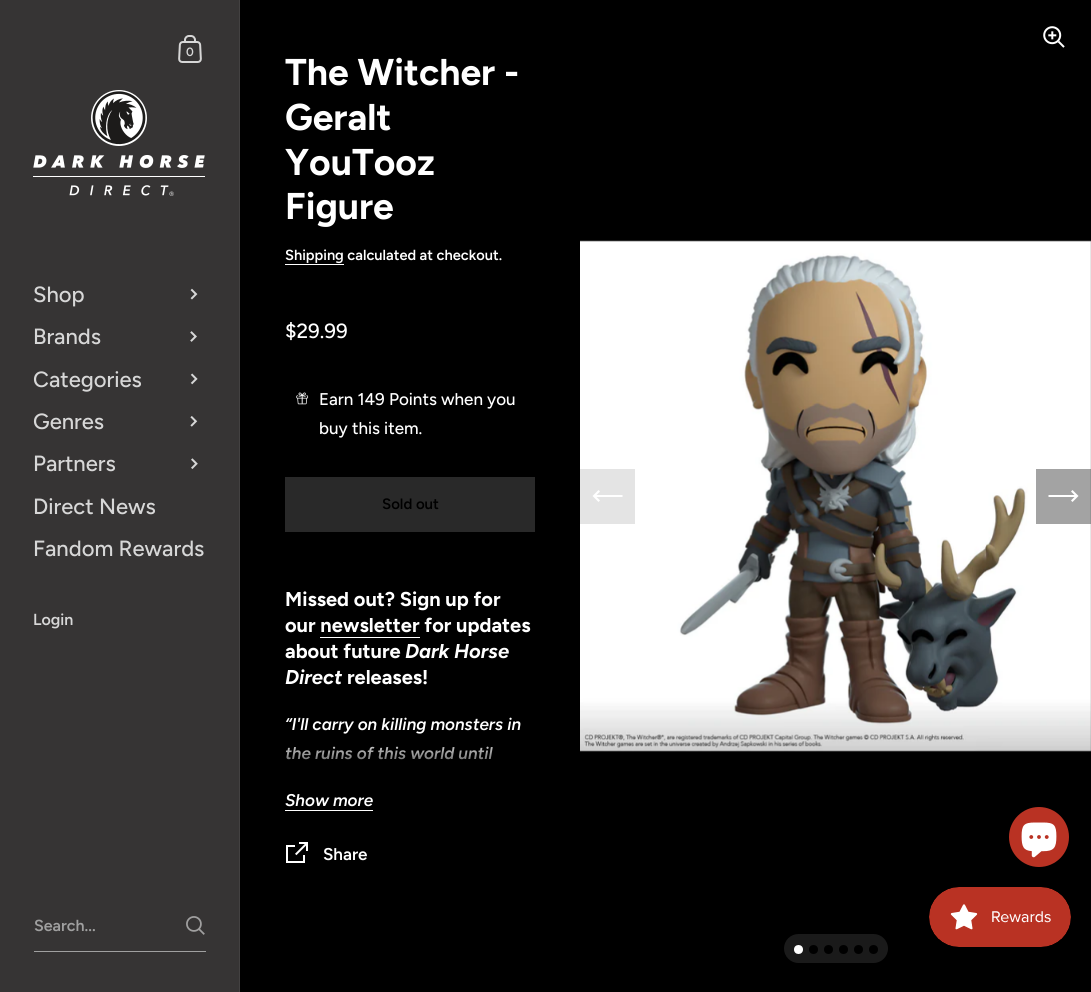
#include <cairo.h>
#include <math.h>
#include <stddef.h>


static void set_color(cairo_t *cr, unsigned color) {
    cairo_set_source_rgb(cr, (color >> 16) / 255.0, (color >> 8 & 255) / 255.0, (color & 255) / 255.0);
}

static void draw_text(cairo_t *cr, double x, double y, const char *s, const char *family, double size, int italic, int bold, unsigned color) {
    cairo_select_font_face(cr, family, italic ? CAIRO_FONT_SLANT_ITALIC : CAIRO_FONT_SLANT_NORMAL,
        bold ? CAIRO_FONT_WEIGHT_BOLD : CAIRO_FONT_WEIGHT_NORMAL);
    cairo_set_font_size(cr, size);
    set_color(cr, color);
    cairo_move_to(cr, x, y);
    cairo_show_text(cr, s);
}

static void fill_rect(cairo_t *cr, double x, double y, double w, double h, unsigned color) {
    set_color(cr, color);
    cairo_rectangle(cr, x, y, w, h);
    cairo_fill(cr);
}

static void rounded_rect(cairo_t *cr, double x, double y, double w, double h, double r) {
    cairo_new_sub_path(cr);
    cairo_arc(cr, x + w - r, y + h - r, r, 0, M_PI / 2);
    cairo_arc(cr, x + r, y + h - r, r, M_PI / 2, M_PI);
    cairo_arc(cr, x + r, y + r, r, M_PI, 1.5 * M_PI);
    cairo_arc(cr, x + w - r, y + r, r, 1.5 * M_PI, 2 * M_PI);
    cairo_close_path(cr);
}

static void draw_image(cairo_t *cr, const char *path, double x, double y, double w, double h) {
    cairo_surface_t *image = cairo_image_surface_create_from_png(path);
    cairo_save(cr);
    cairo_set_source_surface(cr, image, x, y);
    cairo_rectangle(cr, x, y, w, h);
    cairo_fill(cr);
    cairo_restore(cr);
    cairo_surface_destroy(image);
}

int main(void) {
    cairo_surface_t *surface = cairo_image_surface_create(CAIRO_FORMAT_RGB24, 1091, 992);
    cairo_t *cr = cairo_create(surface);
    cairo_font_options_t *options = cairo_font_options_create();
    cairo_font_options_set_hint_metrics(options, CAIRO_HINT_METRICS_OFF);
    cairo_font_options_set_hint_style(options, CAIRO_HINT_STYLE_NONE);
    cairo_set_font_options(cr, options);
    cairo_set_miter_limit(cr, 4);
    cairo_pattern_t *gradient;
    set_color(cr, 0x000000);
    cairo_paint(cr);
    fill_rect(cr, 0, 0, 239, 992, 0x363434);
    fill_rect(cr, 239, 0, 1, 992, 0x434141);
    draw_image(cr, "assets/img1.png", 178, 35, 24, 28);
    draw_text(cr, 186, 56, "0", "Figtree SemiBold", 12, 0, 0, 0xD7D7D7);
    draw_image(cr, "assets/img2.png", 33, 90, 172, 106);
    draw_text(cr, 33, 302, "Shop", "Figtree Medium", 22, 0, 0, 0xD7D7D7);
    draw_image(cr, "assets/img3.png", 190, 288, 8, 12);
    draw_text(cr, 33, 344, "Brands", "Figtree Medium", 22, 0, 0, 0xD7D7D7);
    draw_image(cr, "assets/img4.png", 190, 331, 7, 11);
    draw_text(cr, 33, 387, "Categories", "Figtree Medium", 22, 0, 0, 0xD7D7D7);
    draw_image(cr, "assets/img5.png", 190, 373, 8, 12);
    draw_text(cr, 33, 429, "Genres", "Figtree Medium", 22, 0, 0, 0xD7D7D7);
    draw_image(cr, "assets/img6.png", 190, 416, 8, 11);
    draw_text(cr, 33, 471, "Partners", "Figtree Medium", 22, 0, 0, 0xD7D7D7);
    draw_image(cr, "assets/img7.png", 191, 458, 7, 11);
    draw_text(cr, 33, 514, "Direct News", "Figtree Medium", 22, 0, 0, 0xD7D7D7);
    draw_text(cr, 33, 556, "Fandom Rewards", "Figtree Medium", 22, 0, 0, 0xD7D7D7);
    draw_text(cr, 33, 625, "Login", "Figtree SemiBold", 16, 0, 0, 0xD7D7D7);
    fill_rect(cr, 34, 951, 172, 1, 0xA0A0A0);
    draw_text(cr, 34, 931, "Search...", "Figtree SemiBold", 16, 0, 0, 0xA0A0A0);
    draw_image(cr, "assets/img8.png", 186, 916, 19, 19);
    draw_text(cr, 285, 85, "The Witcher -", "Figtree", 37.25, 0, 1, 0xFFFFFF);
    draw_text(cr, 285, 130, "Geralt", "Figtree", 37.25, 0, 1, 0xFFFFFF);
    draw_text(cr, 285, 175, "YouTooz", "Figtree", 37.25, 0, 1, 0xFFFFFF);
    draw_text(cr, 285, 219, "Figure", "Figtree", 37.25, 0, 1, 0xFFFFFF);
    draw_text(cr, 285, 260, "Shipping calculated at checkout.", "Figtree SemiBold", 14.6, 0, 0, 0xFFFFFF);
    fill_rect(cr, 285, 264, 59, 1, 0xFFFFFF);
    draw_text(cr, 285, 338, "$29.99", "Figtree Medium", 20.5, 0, 0, 0xFFFFFF);
    draw_image(cr, "assets/img9.png", 296, 392, 13, 13);
    draw_text(cr, 319, 405, "Earn 149 Points when you", "Figtree Medium", 17, 0, 0, 0xFFFFFF);
    draw_text(cr, 319, 434, "buy this item.", "Figtree Medium", 17, 0, 0, 0xFFFFFF);
    fill_rect(cr, 285, 477, 250, 55, 0x292929);
    draw_text(cr, 382, 509, "Sold out", "Figtree SemiBold", 15, 0, 0, 0x000000);
    draw_text(cr, 285, 606, "Missed out? Sign up for", "Figtree", 20, 0, 1, 0xFFFFFF);
    draw_text(cr, 285, 632, "our newsletter for updates", "Figtree", 20, 0, 1, 0xFFFFFF);
    fill_rect(cr, 320, 637, 100, 1, 0xFFFFFF);
    draw_text(cr, 285, 658, "about future", "Figtree", 20, 0, 1, 0xFFFFFF);
    draw_text(cr, 405, 658, "Dark Horse", "Figtree", 20, 1, 1, 0xFFFFFF);
    draw_text(cr, 285, 684, "Direct", "Figtree", 20, 1, 1, 0xFFFFFF);
    draw_text(cr, 347, 684, "releases!", "Figtree", 20, 0, 1, 0xFFFFFF);
    draw_text(cr, 285, 730, "“I'll carry on killing monsters in", "Figtree SemiBold", 17, 1, 0, 0xFFFFFF);
    draw_text(cr, 285, 759, "the ruins of this world until", "Figtree SemiBold", 17, 1, 0, 0xFFFFFF);
    gradient = cairo_pattern_create_linear(410, 786, 410, 736);
    cairo_pattern_add_color_stop_rgba(gradient, 0, 0, 0, 0, 1);
    cairo_pattern_add_color_stop_rgba(gradient, 0.1, 0, 0, 0, 1);
    cairo_pattern_add_color_stop_rgba(gradient, 1, 0, 0, 0, 0);
    cairo_set_source(cr, gradient);
    cairo_pattern_destroy(gradient);
    cairo_rectangle(cr, 286, 746, 207, 14);
    cairo_fill(cr);
    fill_rect(cr, 285, 810, 88, 1, 0xFFFFFF);
    draw_text(cr, 285, 806, "Show more", "Figtree SemiBold", 17, 1, 0, 0xFFFFFF);
    draw_image(cr, "assets/img10.png", 286, 842, 22, 21);
    draw_text(cr, 323, 860, "Share", "Figtree SemiBold", 17, 0, 0, 0xFFFFFF);
    draw_image(cr, "assets/img11.png", 1043, 26, 22, 22);
    draw_image(cr, "assets/img12.png", 580, 240, 511, 512);
    fill_rect(cr, 580, 469, 55, 55, 0xE4E4E4);
    set_color(cr, 0xFFFFFF);
    cairo_new_path(cr);
    cairo_move_to(cr, 598.5, 502);
    cairo_line_to(cr, 600, 500.5);
    cairo_line_to(cr, 596.5, 497);
    cairo_line_to(cr, 622.5, 497);
    cairo_line_to(cr, 622.5, 495);
    cairo_line_to(cr, 596.5, 495);
    cairo_line_to(cr, 600, 491.5);
    cairo_line_to(cr, 598.5, 490);
    cairo_line_to(cr, 592.5, 496);
    cairo_close_path(cr);
    cairo_fill(cr);
    cairo_set_source_rgba(cr, 0, 0, 0, 0.36);
    cairo_rectangle(cr, 1036, 469, 55, 55);
    cairo_fill(cr);
    set_color(cr, 0xFFFFFF);
    cairo_new_path(cr);
    cairo_move_to(cr, 1072.5, 490);
    cairo_line_to(cr, 1071, 491.5);
    cairo_line_to(cr, 1074.5, 495);
    cairo_line_to(cr, 1048.5, 495);
    cairo_line_to(cr, 1048.5, 497);
    cairo_line_to(cr, 1074.5, 497);
    cairo_line_to(cr, 1071, 500.5);
    cairo_line_to(cr, 1072.5, 502);
    cairo_line_to(cr, 1078.5, 496);
    cairo_close_path(cr);
    cairo_fill(cr);
    set_color(cr, 0x1A1A1A);
    rounded_rect(cr, 784, 934, 104, 29, 14.5);
    cairo_fill(cr);
    set_color(cr, 0xFFFFFF);
    cairo_arc(cr, 798.5, 949.5, 4.5, 0, 2 * M_PI);
    cairo_fill(cr);
    set_color(cr, 0x000000);
    cairo_arc(cr, 813.5, 949.5, 4.5, 0, 2 * M_PI);
    cairo_fill(cr);
    cairo_arc(cr, 828.5, 949.5, 4.5, 0, 2 * M_PI);
    cairo_fill(cr);
    cairo_arc(cr, 843.5, 949.5, 4.5, 0, 2 * M_PI);
    cairo_fill(cr);
    cairo_arc(cr, 858.5, 949.5, 4.5, 0, 2 * M_PI);
    cairo_fill(cr);
    cairo_arc(cr, 873.5, 949.5, 4.5, 0, 2 * M_PI);
    cairo_fill(cr);
    set_color(cr, 0xB93223);
    cairo_arc(cr, 1039, 837, 30, 0, 2 * M_PI);
    cairo_fill(cr);
    draw_image(cr, "assets/img13.png", 1021, 822, 36, 36);
    draw_image(cr, "assets/img14.png", 929, 887, 142, 60);
    cairo_surface_write_to_png(surface, "output.png");
    cairo_font_options_destroy(options);
    cairo_destroy(cr);
    cairo_surface_destroy(surface);
    return 0;
}
